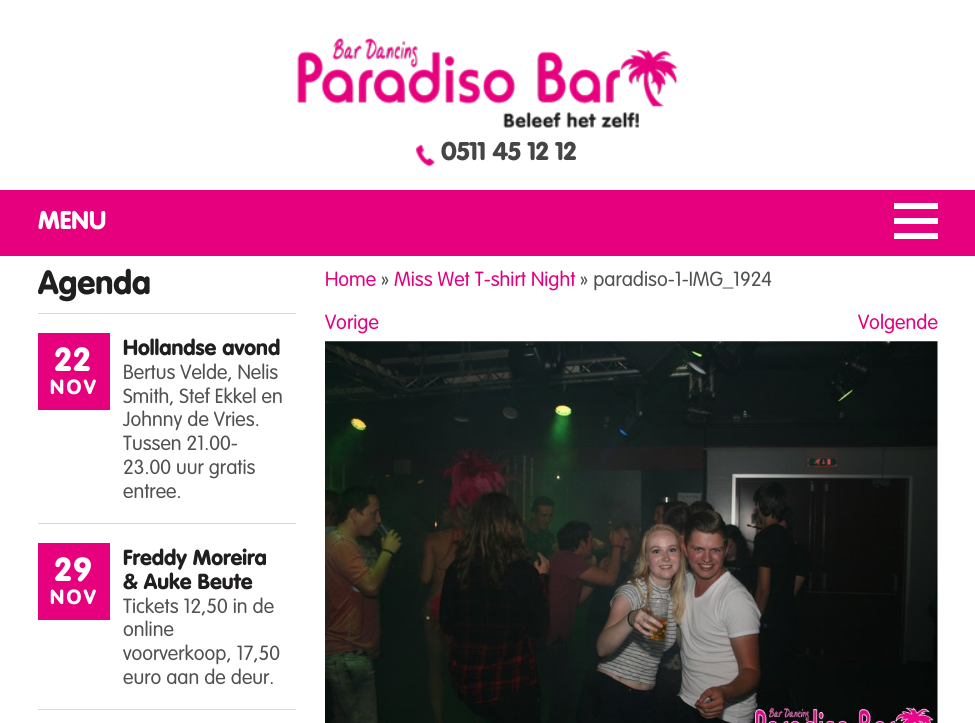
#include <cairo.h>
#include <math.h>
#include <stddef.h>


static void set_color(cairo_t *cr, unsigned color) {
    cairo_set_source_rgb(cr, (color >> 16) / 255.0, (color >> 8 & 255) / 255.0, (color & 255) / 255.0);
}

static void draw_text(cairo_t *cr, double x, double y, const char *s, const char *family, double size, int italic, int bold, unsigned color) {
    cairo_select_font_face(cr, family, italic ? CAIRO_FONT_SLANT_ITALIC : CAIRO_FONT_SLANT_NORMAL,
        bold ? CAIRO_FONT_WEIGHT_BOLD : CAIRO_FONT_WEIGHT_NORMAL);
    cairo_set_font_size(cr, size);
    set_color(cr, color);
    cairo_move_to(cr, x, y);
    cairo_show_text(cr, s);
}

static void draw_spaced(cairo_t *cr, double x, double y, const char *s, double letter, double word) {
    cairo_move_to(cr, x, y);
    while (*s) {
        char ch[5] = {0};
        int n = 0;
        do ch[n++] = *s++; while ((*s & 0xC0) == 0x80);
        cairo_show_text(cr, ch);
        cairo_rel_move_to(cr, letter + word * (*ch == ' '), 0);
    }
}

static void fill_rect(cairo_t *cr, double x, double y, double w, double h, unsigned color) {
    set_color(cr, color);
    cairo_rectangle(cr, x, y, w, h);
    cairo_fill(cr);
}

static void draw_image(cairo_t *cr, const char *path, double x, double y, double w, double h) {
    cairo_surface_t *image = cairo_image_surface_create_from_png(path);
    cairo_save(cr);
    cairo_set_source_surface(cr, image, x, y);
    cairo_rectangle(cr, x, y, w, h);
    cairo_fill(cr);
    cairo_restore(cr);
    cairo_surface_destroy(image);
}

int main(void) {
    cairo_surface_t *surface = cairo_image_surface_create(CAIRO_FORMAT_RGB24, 975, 723);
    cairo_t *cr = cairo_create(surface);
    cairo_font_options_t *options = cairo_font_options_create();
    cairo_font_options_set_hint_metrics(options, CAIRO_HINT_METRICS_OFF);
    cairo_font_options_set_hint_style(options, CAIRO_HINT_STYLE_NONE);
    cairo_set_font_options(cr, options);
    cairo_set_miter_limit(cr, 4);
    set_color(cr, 0xFFFFFF);
    cairo_paint(cr);
    draw_image(cr, "assets/img1.png", 416, 144, 19, 23);
    draw_text(cr, 441, 160, "0511 45 12 12", "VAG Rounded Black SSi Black", 25, 0, 0, 0x454545);
    draw_image(cr, "assets/img2.png", 297, 37, 381, 91);
    fill_rect(cr, 0, 190, 975, 66, 0xE6007E);
    draw_text(cr, 38, 229, "MENU", "VAG Rounded Black SSi Black", 25, 0, 0, 0xFFFFFF);
    fill_rect(cr, 894, 203, 44, 6, 0xFFFFFF);
    fill_rect(cr, 894, 218, 44, 6, 0xFFFFFF);
    fill_rect(cr, 894, 233, 44, 6, 0xFFFFFF);
    fill_rect(cr, 38, 313, 258, 1, 0xDBD6D8);
    draw_text(cr, 38, 294, "Agenda", "VAG Rounded Black SSi Black", 32.5, 0, 0, 0x201E1F);
    fill_rect(cr, 38, 523, 258, 1, 0xDBD6D8);
    fill_rect(cr, 38, 333, 72, 77, 0xE6007E);
    set_color(cr, 0xFFFFFF);
    draw_spaced(cr, 55, 371, "22", 2.5, 0);
    cairo_set_font_size(cr, 20);
    draw_spaced(cr, 50, 394, "NOV", 2.5, 0);
    draw_text(cr, 123, 355, "Hollandse avond", "VAG Rounded Black SSi Black", 21.25, 0, 0, 0x201E1F);
    draw_text(cr, 123, 379, "Bertus Velde, Nelis", "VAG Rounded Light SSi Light", 20, 0, 0, 0x525051);
    draw_text(cr, 123, 403, "Smith, Stef Ekkel en", "VAG Rounded Light SSi Light", 20, 0, 0, 0x525051);
    draw_text(cr, 123, 426, "Johnny de Vries.", "VAG Rounded Light SSi Light", 20, 0, 0, 0x525051);
    draw_text(cr, 123, 450, "Tussen 21.00-", "VAG Rounded Light SSi Light", 20, 0, 0, 0x525051);
    draw_text(cr, 123, 474, "23.00 uur gratis", "VAG Rounded Light SSi Light", 20, 0, 0, 0x525051);
    draw_text(cr, 123, 498, "entree.", "VAG Rounded Light SSi Light", 20, 0, 0, 0x525051);
    fill_rect(cr, 38, 709, 258, 1, 0xDBD6D8);
    fill_rect(cr, 38, 543, 72, 77, 0xE6007E);
    cairo_select_font_face(cr, "VAG Rounded Black SSi Black", CAIRO_FONT_SLANT_NORMAL, CAIRO_FONT_WEIGHT_NORMAL);
    cairo_set_font_size(cr, 32.5);
    set_color(cr, 0xFFFFFF);
    draw_spaced(cr, 55, 581, "29", 2.5, 0);
    cairo_set_font_size(cr, 20);
    draw_spaced(cr, 50, 604, "NOV", 2.5, 0);
    draw_text(cr, 123, 565, "Freddy Moreira", "VAG Rounded Black SSi Black", 21.25, 0, 0, 0x201E1F);
    draw_text(cr, 123, 589, "& Auke Beute", "VAG Rounded Black SSi Black", 21.25, 0, 0, 0x201E1F);
    draw_text(cr, 123, 613, "Tickets 12,50 in de", "VAG Rounded Light SSi Light", 20, 0, 0, 0x525051);
    draw_text(cr, 123, 636, "online", "VAG Rounded Light SSi Light", 20, 0, 0, 0x525051);
    draw_text(cr, 123, 660, "voorverkoop, 17,50", "VAG Rounded Light SSi Light", 20, 0, 0, 0x525051);
    draw_text(cr, 123, 684, "euro aan de deur.", "VAG Rounded Light SSi Light", 20, 0, 0, 0x525051);
    draw_text(cr, 325, 286, "Home", "VAG Rounded Light SSi Light", 20, 0, 0, 0xE6007E);
    draw_text(cr, 381, 286, "»", "VAG Rounded Light SSi Light", 20, 0, 0, 0x525051);
    draw_text(cr, 394, 286, "Miss Wet T-shirt Night", "VAG Rounded Light SSi Light", 20, 0, 0, 0xE6007E);
    draw_text(cr, 580, 286, "» paradiso-1-IMG_1924", "VAG Rounded Light SSi Light", 20, 0, 0, 0x525051);
    draw_text(cr, 325, 329, "Vorige", "VAG Rounded Light SSi Light", 20, 0, 0, 0xE6007E);
    draw_text(cr, 858, 329, "Volgende", "VAG Rounded Light SSi Light", 20, 0, 0, 0xE6007E);
    draw_image(cr, "assets/img3.png", 325, 341, 613, 382);
    cairo_surface_write_to_png(surface, "output.png");
    cairo_font_options_destroy(options);
    cairo_destroy(cr);
    cairo_surface_destroy(surface);
    return 0;
}
